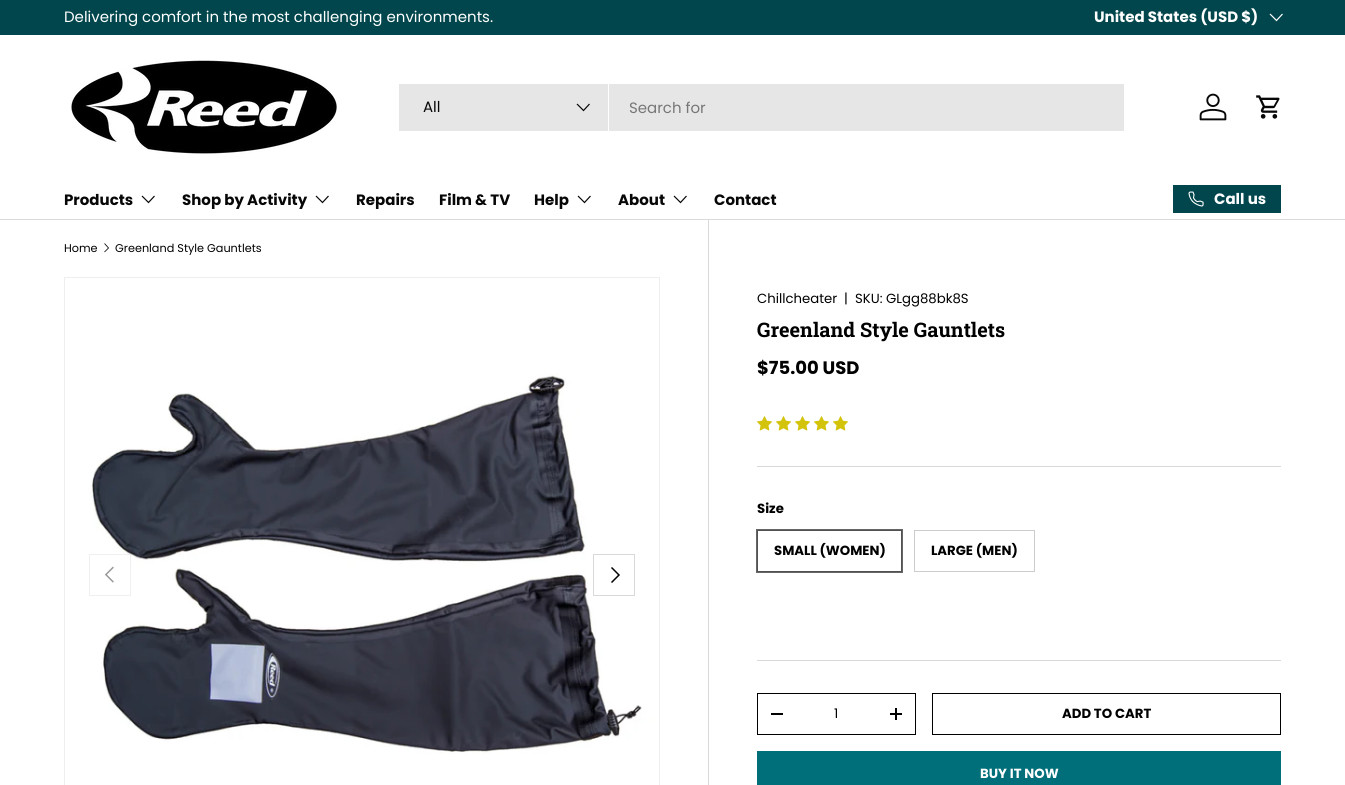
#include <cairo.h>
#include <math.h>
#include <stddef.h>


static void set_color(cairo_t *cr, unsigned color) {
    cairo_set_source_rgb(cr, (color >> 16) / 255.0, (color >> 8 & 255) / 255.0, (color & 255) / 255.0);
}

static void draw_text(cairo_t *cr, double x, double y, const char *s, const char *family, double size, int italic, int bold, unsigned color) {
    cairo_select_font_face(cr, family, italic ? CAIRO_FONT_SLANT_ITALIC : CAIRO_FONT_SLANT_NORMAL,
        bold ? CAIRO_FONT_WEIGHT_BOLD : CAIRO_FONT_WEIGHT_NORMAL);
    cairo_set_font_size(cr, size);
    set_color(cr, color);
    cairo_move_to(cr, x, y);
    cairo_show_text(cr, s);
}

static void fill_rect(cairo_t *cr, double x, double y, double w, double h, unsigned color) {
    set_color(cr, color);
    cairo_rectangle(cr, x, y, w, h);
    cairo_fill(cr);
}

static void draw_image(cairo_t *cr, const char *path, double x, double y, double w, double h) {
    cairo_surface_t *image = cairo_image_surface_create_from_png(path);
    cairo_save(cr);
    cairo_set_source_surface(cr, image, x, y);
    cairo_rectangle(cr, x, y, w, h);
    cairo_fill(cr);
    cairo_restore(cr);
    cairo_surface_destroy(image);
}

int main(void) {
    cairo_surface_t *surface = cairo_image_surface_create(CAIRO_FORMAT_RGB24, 1345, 785);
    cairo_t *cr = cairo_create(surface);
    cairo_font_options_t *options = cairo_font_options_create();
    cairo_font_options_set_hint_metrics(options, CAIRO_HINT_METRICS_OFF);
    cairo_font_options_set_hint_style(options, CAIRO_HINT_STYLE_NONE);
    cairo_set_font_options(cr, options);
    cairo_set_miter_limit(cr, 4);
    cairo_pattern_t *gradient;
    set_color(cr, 0xFFFFFF);
    cairo_paint(cr);
    fill_rect(cr, 0, 0, 1345, 35, 0x00464C);
    draw_text(cr, 64, 22, "Delivering comfort in the most challenging environments.", "Poppins", 15, 0, 0, 0xFFFFFF);
    draw_text(cr, 1094, 22, "United States (USD $)", "Poppins", 15, 0, 1, 0xFFFFFF);
    cairo_new_path(cr);
    cairo_move_to(cr, 1282.5, 14);
    cairo_line_to(cr, 1276.5, 20.5);
    cairo_line_to(cr, 1270, 14);
    cairo_set_line_width(cr, 1.2);
    cairo_stroke(cr);
    fill_rect(cr, 0, 219, 1345, 1, 0xDADADA);
    draw_image(cr, "assets/img1.png", 71, 60, 266, 94);
    fill_rect(cr, 399, 84, 725, 47, 0xE6E6E6);
    fill_rect(cr, 608, 84, 1, 47, 0xFFFFFF);
    draw_text(cr, 423, 112, "All", "Poppins", 15, 0, 0, 0x070707);
    cairo_new_path(cr);
    cairo_move_to(cr, 589.5, 104);
    cairo_line_to(cr, 583.5, 110.5);
    cairo_line_to(cr, 577, 104);
    cairo_stroke(cr);
    draw_text(cr, 629, 113, "Search for", "Poppins", 15, 0, 0, 0x777777);
    draw_image(cr, "assets/img2.png", 1199, 93, 28, 28);
    draw_image(cr, "assets/img3.png", 1256, 95, 24, 24);
    draw_text(cr, 64, 205, "Products", "Poppins", 15, 0, 1, 0x070707);
    cairo_new_path(cr);
    cairo_move_to(cr, 154.5, 196);
    cairo_line_to(cr, 148.5, 202.5);
    cairo_line_to(cr, 142, 196);
    cairo_stroke(cr);
    draw_text(cr, 182, 205, "Shop by Activity", "Poppins", 15, 0, 1, 0x070707);
    cairo_new_path(cr);
    cairo_move_to(cr, 328.5, 196);
    cairo_line_to(cr, 322.5, 202.5);
    cairo_line_to(cr, 316, 196);
    cairo_stroke(cr);
    draw_text(cr, 356, 205, "Repairs", "Poppins", 15, 0, 1, 0x070707);
    draw_text(cr, 439, 205, "Film & TV", "Poppins", 15, 0, 1, 0x070707);
    draw_text(cr, 534, 205, "Help", "Poppins", 15, 0, 1, 0x070707);
    cairo_new_path(cr);
    cairo_move_to(cr, 590.5, 196);
    cairo_line_to(cr, 584.5, 202.5);
    cairo_line_to(cr, 578, 196);
    cairo_stroke(cr);
    draw_text(cr, 618, 205, "About", "Poppins", 15, 0, 1, 0x070707);
    cairo_new_path(cr);
    cairo_move_to(cr, 686.5, 196);
    cairo_line_to(cr, 680.5, 202.5);
    cairo_line_to(cr, 674, 196);
    cairo_stroke(cr);
    draw_text(cr, 714, 205, "Contact", "Poppins", 15, 0, 1, 0x070707);
    gradient = cairo_pattern_create_linear(968, 161, 1274, 237);
    cairo_pattern_add_color_stop_rgba(gradient, 0.6, 0.165, 0.427, 0.447, 1);
    cairo_pattern_add_color_stop_rgba(gradient, 0.6, 0, 0.275, 0.298, 1);
    cairo_pattern_add_color_stop_rgba(gradient, 1, 0, 0.275, 0.298, 1);
    cairo_set_source(cr, gradient);
    cairo_pattern_destroy(gradient);
    cairo_rectangle(cr, 1174, 186, 106, 26);
    cairo_fill(cr);
    cairo_rectangle(cr, 1173.5, 185.5, 107, 27);
    set_color(cr, 0x00464C);
    cairo_set_line_width(cr, 1);
    cairo_stroke(cr);
    draw_image(cr, "assets/img4.png", 1188, 191, 16, 16);
    draw_text(cr, 1214, 204, "Call us", "Poppins", 15, 0, 1, 0xFFFFFF);
    draw_text(cr, 64, 252, "Home", "Poppins", 11.25, 0, 0, 0x000000);
    cairo_new_path(cr);
    cairo_move_to(cr, 104.5, 243.5);
    cairo_line_to(cr, 108.5, 248);
    cairo_line_to(cr, 104.5, 252);
    cairo_set_line_width(cr, 0.8);
    cairo_stroke(cr);
    draw_text(cr, 115, 252, "Greenland Style Gauntlets", "Poppins", 11.25, 0, 0, 0x000000);
    cairo_rectangle(cr, 64.5, 277.5, 595, 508);
    set_color(cr, 0xEEEEEE);
    cairo_set_line_width(cr, 1);
    cairo_stroke(cr);
    draw_image(cr, "assets/img5.png", 65, 278, 594, 507);
    cairo_set_source_rgba(cr, 1, 1, 1, 0.4);
    cairo_rectangle(cr, 130, 554, 1, 1);
    cairo_fill(cr);
    cairo_rectangle(cr, 89.5, 554.5, 41, 41);
    cairo_set_source_rgba(cr, 0, 0, 0, 0.06);
    cairo_stroke(cr);
    draw_image(cr, "assets/img6.png", 105, 566, 9, 17);
    cairo_rectangle(cr, 593.5, 554.5, 41, 41);
    set_color(cr, 0xD9D9D9);
    cairo_stroke(cr);
    cairo_new_path(cr);
    cairo_move_to(cr, 611.5, 567.5);
    cairo_line_to(cr, 619, 575);
    cairo_line_to(cr, 611.5, 582.5);
    set_color(cr, 0x000000);
    cairo_set_line_width(cr, 1.5);
    cairo_stroke(cr);
    fill_rect(cr, 708, 220, 1, 565, 0xD9D9D9);
    draw_text(cr, 757, 303, "Chillcheater", "Poppins", 13.25, 0, 0, 0x000000);
    draw_text(cr, 844, 303, "|", "Poppins", 13.25, 0, 0, 0x000000);
    draw_text(cr, 855, 303, "SKU: GLgg88bk8S", "Poppins", 13.25, 0, 0, 0x000000);
    draw_text(cr, 757, 337, "Greenland Style Gauntlets", "Roboto Slab", 20, 0, 1, 0x000000);
    draw_text(cr, 757, 374, "$75.00 USD", "Poppins", 18, 0, 1, 0x000000);
    draw_image(cr, "assets/img7.png", 757, 416, 15, 15);
    draw_image(cr, "assets/img7.png", 776, 416, 15, 15);
    draw_image(cr, "assets/img7.png", 795, 416, 15, 15);
    draw_image(cr, "assets/img7.png", 814, 416, 15, 15);
    draw_image(cr, "assets/img7.png", 833, 416, 15, 15);
    fill_rect(cr, 757, 466, 524, 1, 0xD9D9D9);
    draw_text(cr, 757, 513, "Size", "Poppins", 13.25, 0, 1, 0x000000);
    cairo_rectangle(cr, 757.5, 530.5, 144, 41);
    set_color(cr, 0xCCCCCC);
    cairo_set_line_width(cr, 1);
    cairo_stroke(cr);
    cairo_rectangle(cr, 757, 530, 145, 42);
    cairo_set_source_rgba(cr, 0, 0, 0, 0.6);
    cairo_set_line_width(cr, 2);
    cairo_stroke(cr);
    draw_text(cr, 774, 555, "SMALL (WOMEN)", "Poppins", 13.25, 0, 1, 0x000000);
    cairo_rectangle(cr, 914.5, 530.5, 120, 41);
    set_color(cr, 0xCCCCCC);
    cairo_set_line_width(cr, 1);
    cairo_stroke(cr);
    draw_text(cr, 931, 555, "LARGE (MEN)", "Poppins", 13.25, 0, 1, 0x000000);
    fill_rect(cr, 757, 660, 524, 1, 0xD9D9D9);
    cairo_rectangle(cr, 757.5, 693.5, 158, 41);
    set_color(cr, 0x000000);
    cairo_stroke(cr);
    fill_rect(cr, 771, 713, 12, 2, 0x000000);
    draw_text(cr, 834, 718, "1", "Poppins", 13.25, 0, 0, 0x000000);
    fill_rect(cr, 890, 713, 12, 2, 0x000000);
    fill_rect(cr, 895, 708, 2, 12, 0x000000);
    cairo_rectangle(cr, 932.5, 693.5, 348, 41);
    cairo_stroke(cr);
    draw_text(cr, 1062, 718, "ADD TO CART", "Poppins", 13.25, 0, 1, 0x000000);
    gradient = cairo_pattern_create_linear(-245, 588, 1239, 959);
    cairo_pattern_add_color_stop_rgba(gradient, 0.6, 0.161, 0.565, 0.6, 1);
    cairo_pattern_add_color_stop_rgba(gradient, 0.6, 0, 0.435, 0.475, 1);
    cairo_pattern_add_color_stop_rgba(gradient, 1, 0, 0.435, 0.475, 1);
    cairo_set_source(cr, gradient);
    cairo_pattern_destroy(gradient);
    cairo_rectangle(cr, 758, 752, 522, 33);
    cairo_fill(cr);
    cairo_rectangle(cr, 757.5, 751.5, 523, 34);
    set_color(cr, 0x006F79);
    cairo_stroke(cr);
    draw_text(cr, 980, 778, "BUY IT NOW", "Poppins", 13.25, 0, 1, 0xFFFFFF);
    cairo_surface_write_to_png(surface, "output.png");
    cairo_font_options_destroy(options);
    cairo_destroy(cr);
    cairo_surface_destroy(surface);
    return 0;
}
